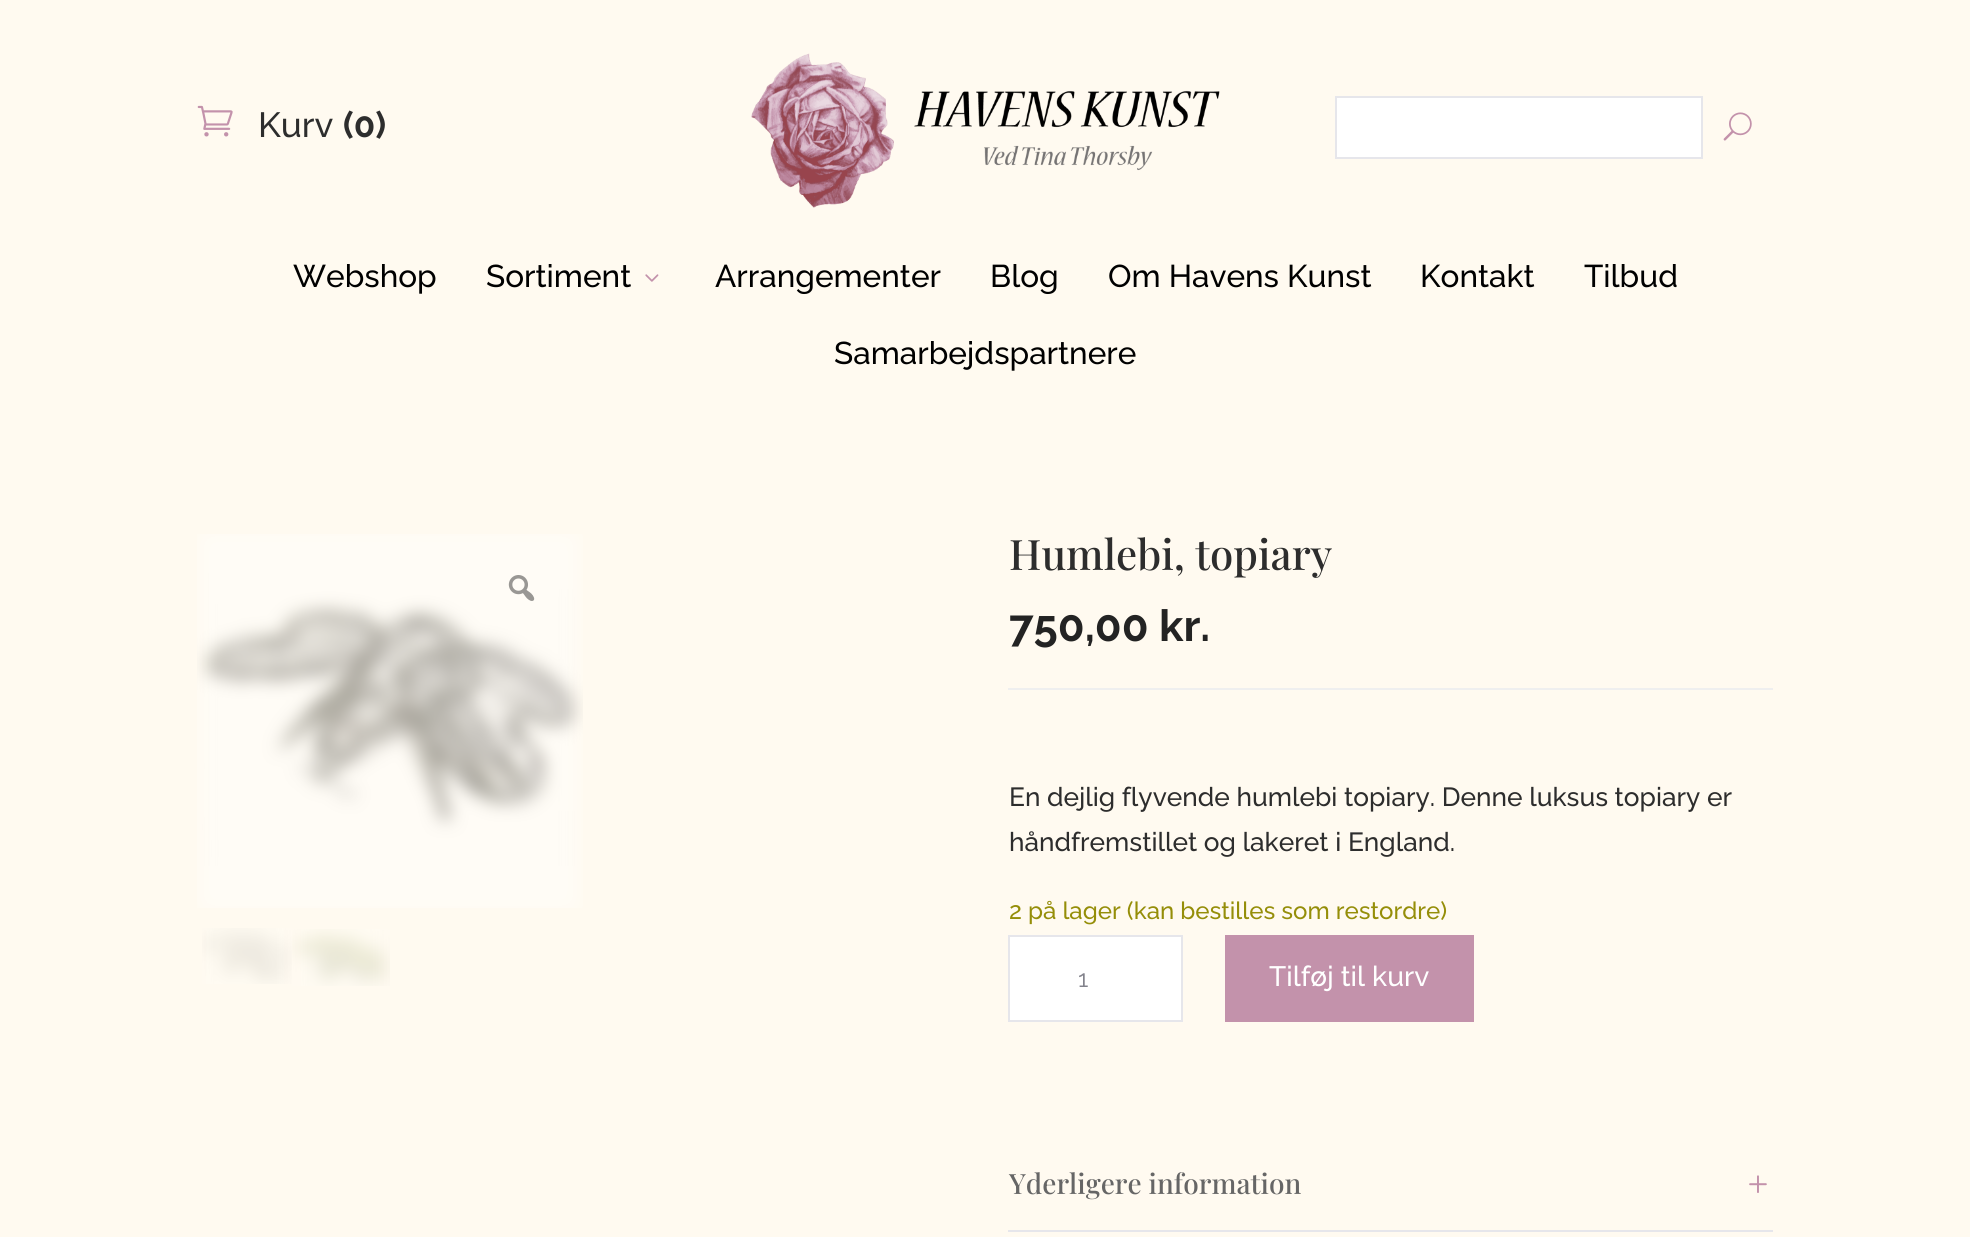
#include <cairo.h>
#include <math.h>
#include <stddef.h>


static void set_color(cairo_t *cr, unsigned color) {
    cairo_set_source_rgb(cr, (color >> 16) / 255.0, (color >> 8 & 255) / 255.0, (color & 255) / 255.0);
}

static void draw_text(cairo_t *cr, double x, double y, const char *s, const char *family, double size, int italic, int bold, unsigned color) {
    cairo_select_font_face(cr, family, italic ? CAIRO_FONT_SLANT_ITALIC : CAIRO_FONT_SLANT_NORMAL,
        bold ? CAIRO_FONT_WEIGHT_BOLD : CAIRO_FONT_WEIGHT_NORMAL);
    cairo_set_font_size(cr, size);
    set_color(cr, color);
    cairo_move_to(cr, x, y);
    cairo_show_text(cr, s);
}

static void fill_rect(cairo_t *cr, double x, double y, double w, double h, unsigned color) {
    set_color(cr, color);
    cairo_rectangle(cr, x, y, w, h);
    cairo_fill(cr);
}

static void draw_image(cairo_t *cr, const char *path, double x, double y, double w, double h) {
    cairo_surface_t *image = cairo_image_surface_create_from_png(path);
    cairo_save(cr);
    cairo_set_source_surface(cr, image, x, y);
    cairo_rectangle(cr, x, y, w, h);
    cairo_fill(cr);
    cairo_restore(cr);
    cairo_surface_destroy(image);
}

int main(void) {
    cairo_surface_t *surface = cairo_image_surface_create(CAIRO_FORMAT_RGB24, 1970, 1237);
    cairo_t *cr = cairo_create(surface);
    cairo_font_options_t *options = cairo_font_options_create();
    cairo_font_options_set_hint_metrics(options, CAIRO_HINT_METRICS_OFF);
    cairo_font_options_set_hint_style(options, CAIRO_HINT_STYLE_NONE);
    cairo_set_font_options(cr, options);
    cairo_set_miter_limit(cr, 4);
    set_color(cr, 0xFFFAF0);
    cairo_paint(cr);
    draw_image(cr, "assets/img1.png", 197, 105, 36, 32);
    draw_text(cr, 258, 137, "Kurv", "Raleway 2 Thin", 35, 0, 0, 0x2D2D2D);
    draw_text(cr, 343, 137, "(0)", "Raleway Thin", 35, 0, 0, 0x2D2D2D);
    draw_image(cr, "assets/img2.png", 751, 53, 469, 155);
    set_color(cr, 0xFFFFFF);
    cairo_rectangle(cr, 1336, 97, 366, 61);
    cairo_fill_preserve(cr);
    set_color(cr, 0xE6E6EB);
    cairo_stroke(cr);
    draw_image(cr, "assets/img3.png", 1723, 112, 29, 29);
    draw_text(cr, 293, 287, "Webshop", "Raleway 2 Thin", 31.5, 0, 0, 0x000000);
    draw_text(cr, 486, 287, "Sortiment", "Raleway 2 Thin", 31.5, 0, 0, 0x000000);
    draw_image(cr, "assets/img4.png", 645, 274, 14, 8);
    draw_text(cr, 715, 287, "Arrangementer", "Raleway 2 Thin", 31.5, 0, 0, 0x000000);
    draw_text(cr, 990, 287, "Blog", "Raleway 2 Thin", 31.5, 0, 0, 0x000000);
    draw_text(cr, 1108, 287, "Om Havens Kunst", "Raleway 2 Thin", 31.5, 0, 0, 0x000000);
    draw_text(cr, 1420, 287, "Kontakt", "Raleway 2 Thin", 31.5, 0, 0, 0x000000);
    draw_text(cr, 1584, 287, "Tilbud", "Raleway 2 Thin", 31.5, 0, 0, 0x000000);
    draw_text(cr, 834, 364, "Samarbejdspartnere", "Raleway 2 Thin", 31.5, 0, 0, 0x000000);
    draw_image(cr, "assets/img5.png", 197, 534, 386, 374);
    draw_image(cr, "assets/img6.png", 508, 575, 27, 26);
    draw_image(cr, "assets/img7.png", 202, 928, 90, 56);
    draw_image(cr, "assets/img8.png", 292, 929, 98, 57);
    draw_text(cr, 1009, 570, "Humlebi, topiary", "Playfair Display Medium", 42, 0, 0, 0x2D2D2D);
    draw_text(cr, 1009, 641, "750,00 kr.", "Raleway Thin", 43.75, 0, 0, 0x232323);
    fill_rect(cr, 1008, 688, 765, 2, 0xEFEFEF);
    draw_text(cr, 1009, 806, "En dejlig flyvende humlebi topiary. Denne luksus topiary er", "Raleway 2 Thin", 26.25, 0, 0, 0x2D2D2D);
    draw_text(cr, 1009, 851, "håndfremstillet og lakeret i England.", "Raleway 2 Thin", 26.25, 0, 0, 0x2D2D2D);
    draw_text(cr, 1009, 919, "2 på lager (kan bestilles som restordre)", "Raleway 2 Thin", 24.1, 0, 0, 0x958E09);
    set_color(cr, 0xFFFFFF);
    cairo_rectangle(cr, 1009, 936, 173, 85);
    cairo_fill_preserve(cr);
    set_color(cr, 0xE6E6EB);
    cairo_stroke(cr);
    draw_text(cr, 1078, 987, "1", "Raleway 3 Thin", 24, 0, 0, 0x82828B);
    fill_rect(cr, 1225, 935, 249, 87, 0xC392AB);
    draw_text(cr, 1269, 986, "Tilføj til kurv", "Raleway 2 Thin", 28, 0, 0, 0xFFFFFF);
    fill_rect(cr, 1008, 1230, 765, 2, 0xE6E6EB);
    draw_text(cr, 1009, 1194, "Yderligere information", "Playfair Display Medium", 28, 0, 0, 0x666666);
    draw_image(cr, "assets/img9.png", 1749, 1175, 18, 18);
    cairo_surface_write_to_png(surface, "output.png");
    cairo_font_options_destroy(options);
    cairo_destroy(cr);
    cairo_surface_destroy(surface);
    return 0;
}
